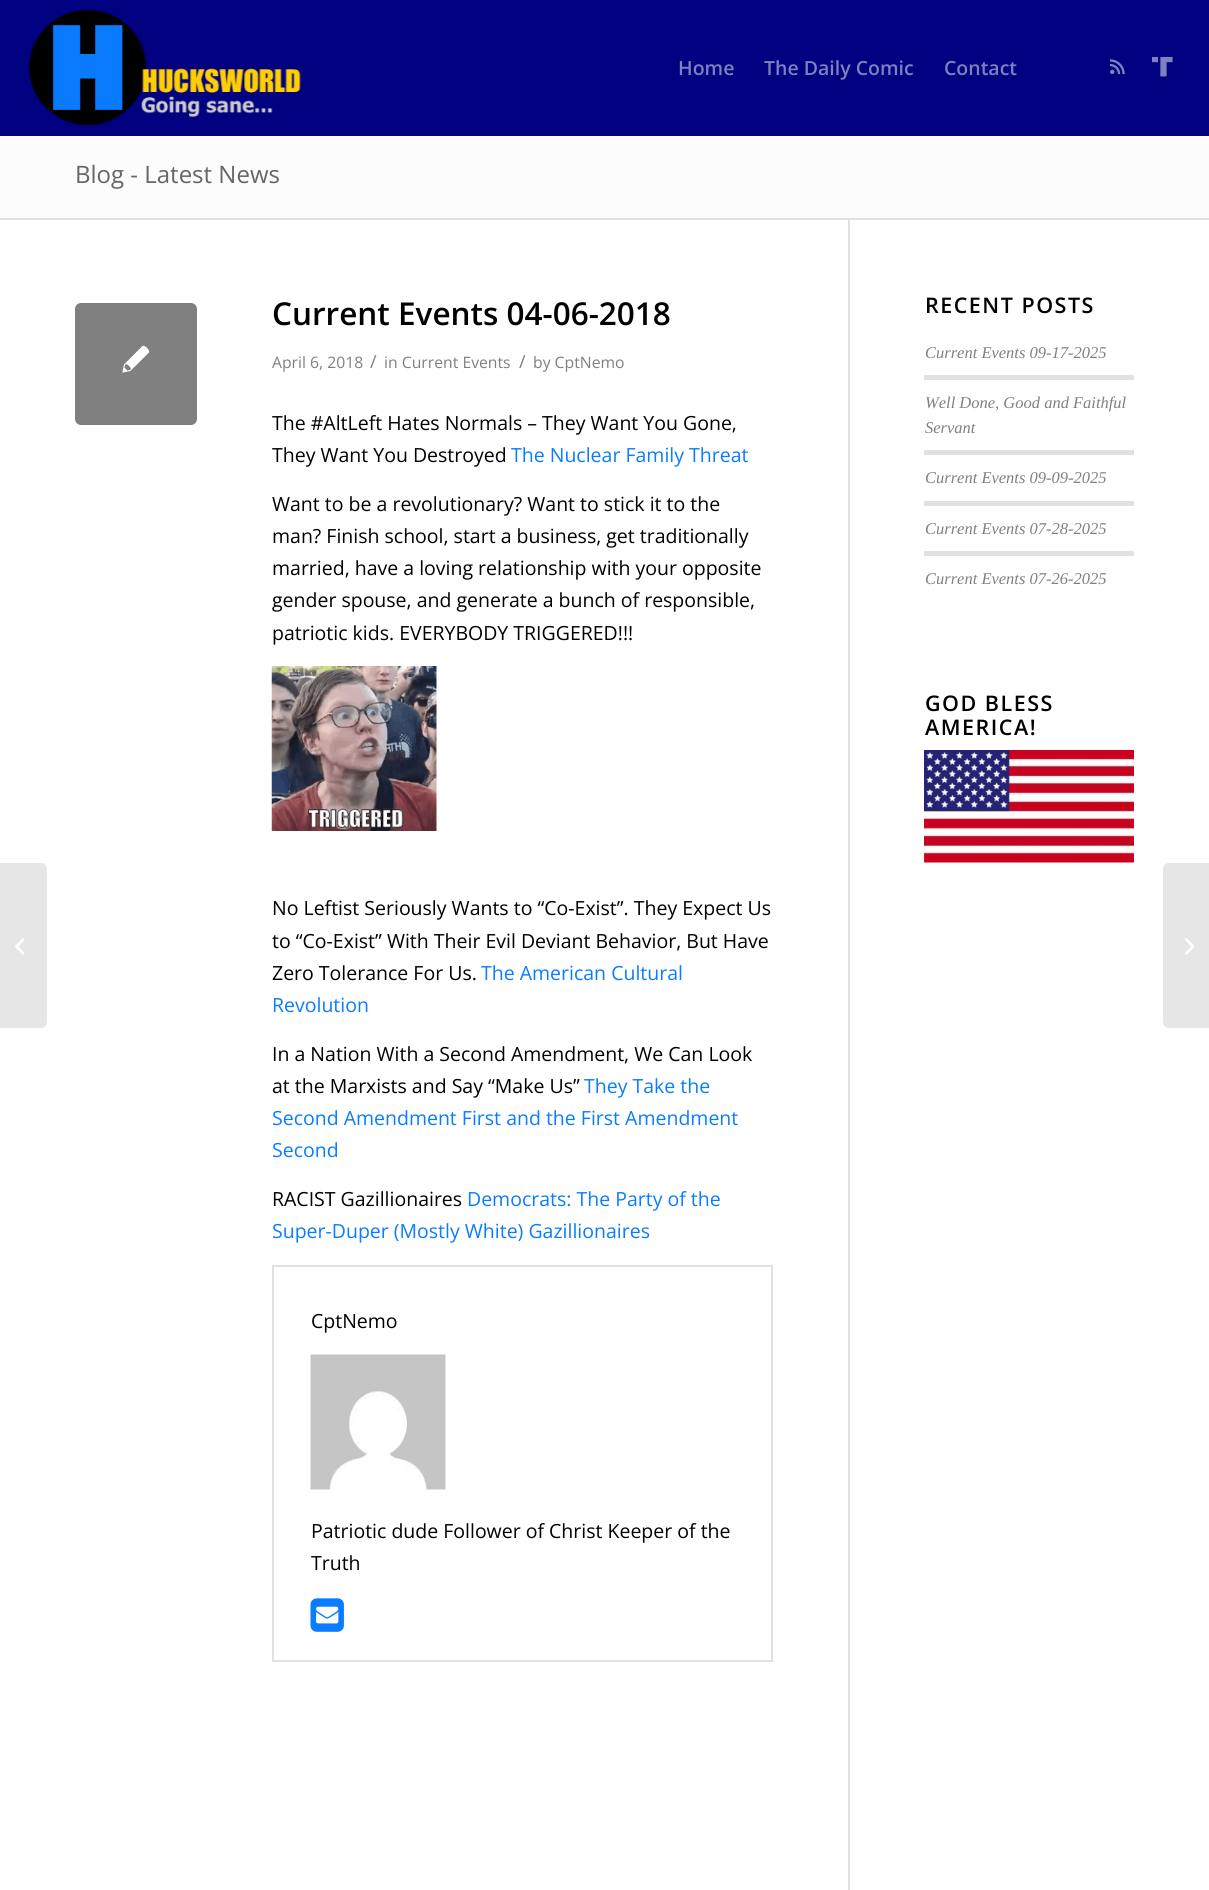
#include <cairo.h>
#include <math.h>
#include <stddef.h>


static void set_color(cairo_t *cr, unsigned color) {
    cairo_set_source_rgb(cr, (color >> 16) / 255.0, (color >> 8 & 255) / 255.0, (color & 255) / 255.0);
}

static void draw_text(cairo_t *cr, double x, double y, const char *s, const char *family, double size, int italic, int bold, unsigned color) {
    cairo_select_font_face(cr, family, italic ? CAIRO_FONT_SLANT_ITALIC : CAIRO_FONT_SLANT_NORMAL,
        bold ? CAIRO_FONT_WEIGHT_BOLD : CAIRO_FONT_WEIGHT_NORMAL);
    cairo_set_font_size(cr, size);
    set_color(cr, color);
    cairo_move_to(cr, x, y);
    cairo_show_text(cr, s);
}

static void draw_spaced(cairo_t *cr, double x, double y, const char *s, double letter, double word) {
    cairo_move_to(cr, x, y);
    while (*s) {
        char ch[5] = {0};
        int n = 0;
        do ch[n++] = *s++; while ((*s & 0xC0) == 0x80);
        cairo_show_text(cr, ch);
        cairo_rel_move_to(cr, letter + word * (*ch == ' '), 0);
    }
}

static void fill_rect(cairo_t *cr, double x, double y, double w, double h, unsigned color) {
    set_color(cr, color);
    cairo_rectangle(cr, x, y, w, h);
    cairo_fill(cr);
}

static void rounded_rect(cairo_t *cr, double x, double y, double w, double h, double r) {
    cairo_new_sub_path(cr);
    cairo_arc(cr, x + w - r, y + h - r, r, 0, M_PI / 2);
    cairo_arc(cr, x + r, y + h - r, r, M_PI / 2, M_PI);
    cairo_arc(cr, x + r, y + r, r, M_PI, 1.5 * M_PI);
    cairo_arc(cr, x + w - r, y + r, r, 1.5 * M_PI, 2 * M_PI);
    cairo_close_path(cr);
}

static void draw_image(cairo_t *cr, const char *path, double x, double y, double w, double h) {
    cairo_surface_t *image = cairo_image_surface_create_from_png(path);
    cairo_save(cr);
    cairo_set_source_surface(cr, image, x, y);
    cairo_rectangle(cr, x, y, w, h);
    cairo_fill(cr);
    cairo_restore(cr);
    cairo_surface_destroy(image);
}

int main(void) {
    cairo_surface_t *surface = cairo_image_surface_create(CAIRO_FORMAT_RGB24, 1209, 1890);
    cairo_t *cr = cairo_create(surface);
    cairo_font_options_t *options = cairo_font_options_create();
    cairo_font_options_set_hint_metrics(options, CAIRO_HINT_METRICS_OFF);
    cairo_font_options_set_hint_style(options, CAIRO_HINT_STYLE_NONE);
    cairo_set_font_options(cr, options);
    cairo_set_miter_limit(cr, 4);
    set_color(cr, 0xFCFCFC);
    cairo_paint(cr);
    fill_rect(cr, 0, 0, 1209, 136, 0x000080);
    draw_image(cr, "assets/img1.png", 29, 10, 272, 115);
    draw_text(cr, 678, 75, "Home", "Open Sans SemiBold", 19.5, 0, 0, 0x8080C0);
    draw_text(cr, 764, 75, "The Daily Comic", "Open Sans SemiBold", 19.5, 0, 0, 0x8080C0);
    draw_text(cr, 944, 75, "Contact", "Open Sans SemiBold", 19.5, 0, 0, 0x8080C0);
    draw_image(cr, "assets/img2.png", 1110, 59, 15, 16);
    draw_image(cr, "assets/img3.png", 1152, 56, 21, 21);
    fill_rect(cr, 0, 220, 1209, 1670, 0xFFFFFF);
    set_color(cr, 0xE6E6E6);
    cairo_new_path(cr);
    cairo_move_to(cr, 0, 863);
    cairo_line_to(cr, 41, 863);
    cairo_curve_to(cr, 44.5, 863, 47, 865.5, 47, 869);
    cairo_line_to(cr, 47, 1022);
    cairo_curve_to(cr, 47, 1025.5, 44.5, 1028, 41, 1028);
    cairo_line_to(cr, 0, 1028);
    cairo_close_path(cr);
    cairo_fill(cr);
    draw_image(cr, "assets/img4.png", 15, 938, 9, 17);
    draw_text(cr, 75, 183, "Blog - Latest News", "Open Sans", 24, 0, 0, 0x666666);
    fill_rect(cr, 0, 218, 1209, 2, 0xE1E1E1);
    fill_rect(cr, 848, 219, 2, 1671, 0xE1E1E1);
    set_color(cr, 0x808080);
    rounded_rect(cr, 75, 303, 122, 122, 6);
    cairo_fill(cr);
    draw_image(cr, "assets/img5.png", 122, 345, 28, 28);
    draw_text(cr, 272, 325, "Current Events 04-06-2018", "Open Sans SemiBold", 31.5, 0, 0, 0x000000);
    draw_text(cr, 272, 368, "April 6, 2018", "Open Sans", 15.75, 0, 0, 0x808080);
    draw_text(cr, 370, 368, "/", "Open Sans", 18, 0, 0, 0x808080);
    draw_text(cr, 384, 368, "in Current Events", "Open Sans", 15.75, 0, 0, 0x808080);
    draw_text(cr, 519, 368, "/", "Open Sans", 18, 0, 0, 0x808080);
    draw_text(cr, 533, 368, "by CptNemo", "Open Sans", 15.75, 0, 0, 0x808080);
    draw_text(cr, 272, 430, "The #AltLeft Hates Normals – They Want You Gone,", "Open Sans", 19.5, 0, 0, 0x000000);
    draw_text(cr, 272, 462, "They Want You Destroyed", "Open Sans", 19.5, 0, 0, 0x000000);
    draw_text(cr, 511, 462, "The Nuclear Family Threat", "Open Sans", 19.5, 0, 0, 0x0A7CFF);
    draw_text(cr, 272, 511, "Want to be a revolutionary? Want to stick it to the", "Open Sans", 19.5, 0, 0, 0x000000);
    draw_text(cr, 272, 543, "man? Finish school, start a business, get traditionally", "Open Sans", 19.5, 0, 0, 0x000000);
    draw_text(cr, 272, 575, "married, have a loving relationship with your opposite", "Open Sans", 19.5, 0, 0, 0x000000);
    draw_text(cr, 272, 607, "gender spouse, and generate a bunch of responsible,", "Open Sans", 19.5, 0, 0, 0x000000);
    draw_text(cr, 272, 640, "patriotic kids. EVERYBODY TRIGGERED!!!", "Open Sans", 19.5, 0, 0, 0x000000);
    draw_image(cr, "assets/img6.png", 271, 666, 166, 165);
    draw_text(cr, 272, 915, "No Leftist Seriously Wants to “Co-Exist”. They Expect Us", "Open Sans", 19.5, 0, 0, 0x000000);
    draw_text(cr, 272, 948, "to “Co-Exist” With Their Evil Deviant Behavior, But Have", "Open Sans", 19.5, 0, 0, 0x000000);
    draw_text(cr, 272, 980, "Zero Tolerance For Us.", "Open Sans", 19.5, 0, 0, 0x000000);
    draw_text(cr, 481, 980, "The American Cultural", "Open Sans", 19.5, 0, 0, 0x0A7CFF);
    draw_text(cr, 272, 1012, "Revolution", "Open Sans", 19.5, 0, 0, 0x0A7CFF);
    draw_text(cr, 272, 1061, "In a Nation With a Second Amendment, We Can Look", "Open Sans", 19.5, 0, 0, 0x000000);
    draw_text(cr, 272, 1093, "at the Marxists and Say “Make Us”", "Open Sans", 19.5, 0, 0, 0x000000);
    draw_text(cr, 584, 1093, "They Take the", "Open Sans", 19.5, 0, 0, 0x0A7CFF);
    draw_text(cr, 272, 1125, "Second Amendment First and the First Amendment", "Open Sans", 19.5, 0, 0, 0x0A7CFF);
    draw_text(cr, 272, 1157, "Second", "Open Sans", 19.5, 0, 0, 0x0A7CFF);
    draw_text(cr, 272, 1206, "RACIST Gazillionaires", "Open Sans", 19.5, 0, 0, 0x000000);
    draw_text(cr, 467, 1206, "Democrats: The Party of the", "Open Sans", 19.5, 0, 0, 0x0A7CFF);
    draw_text(cr, 272, 1238, "Super-Duper (Mostly White) Gazillionaires", "Open Sans", 19.5, 0, 0, 0x0A7CFF);
    cairo_rectangle(cr, 273, 1266, 499, 395);
    set_color(cr, 0xE1E1E1);
    cairo_stroke(cr);
    draw_text(cr, 311, 1328, "CptNemo", "Open Sans", 19.5, 0, 0, 0x000000);
    draw_image(cr, "assets/img7.png", 310, 1354, 136, 136);
    draw_text(cr, 311, 1538, "Patriotic dude Follower of Christ Keeper of the", "Open Sans", 19.5, 0, 0, 0x000000);
    draw_text(cr, 311, 1570, "Truth", "Open Sans", 19.5, 0, 0, 0x000000);
    draw_image(cr, "assets/img8.png", 310, 1598, 34, 34);
    cairo_select_font_face(cr, "Open Sans SemiBold", CAIRO_FONT_SLANT_NORMAL, CAIRO_FONT_WEIGHT_NORMAL);
    cairo_set_font_size(cr, 21.5);
    draw_spaced(cr, 925, 313, "RECENT POSTS", 1.5, 0);
    draw_text(cr, 925, 358, "Current Events 09-17-2025", "Liberation Serif", 16.5, 1, 0, 0x808080);
    fill_rect(cr, 924, 375, 210, 5, 0xE1E1E1);
    draw_text(cr, 925, 408, "Well Done, Good and Faithful", "Liberation Serif", 16.5, 1, 0, 0x808080);
    draw_text(cr, 925, 433, "Servant", "Liberation Serif", 16.5, 1, 0, 0x808080);
    fill_rect(cr, 924, 450, 210, 5, 0xE1E1E1);
    draw_text(cr, 925, 483, "Current Events 09-09-2025", "Liberation Serif", 16.5, 1, 0, 0x808080);
    fill_rect(cr, 924, 501, 210, 5, 0xE1E1E1);
    draw_text(cr, 925, 534, "Current Events 07-28-2025", "Liberation Serif", 16.5, 1, 0, 0x808080);
    fill_rect(cr, 924, 551, 210, 5, 0xE1E1E1);
    draw_text(cr, 925, 584, "Current Events 07-26-2025", "Liberation Serif", 16.5, 1, 0, 0x808080);
    cairo_select_font_face(cr, "Open Sans SemiBold", CAIRO_FONT_SLANT_NORMAL, CAIRO_FONT_WEIGHT_NORMAL);
    cairo_set_font_size(cr, 21.5);
    set_color(cr, 0x000000);
    draw_spaced(cr, 925, 711, "GOD BLESS", 1.5, 0);
    draw_spaced(cr, 925, 735, "AMERICA!", 1.5, 0);
    draw_image(cr, "assets/img9.png", 924, 750, 210, 113);
    set_color(cr, 0xE6E6E6);
    cairo_new_path(cr);
    cairo_move_to(cr, 1169, 863);
    cairo_line_to(cr, 1209, 863);
    cairo_line_to(cr, 1209, 1028);
    cairo_line_to(cr, 1169, 1028);
    cairo_curve_to(cr, 1165.5, 1028, 1163, 1025.5, 1163, 1022);
    cairo_line_to(cr, 1163, 869);
    cairo_curve_to(cr, 1163, 865.5, 1165.5, 863, 1169, 863);
    cairo_close_path(cr);
    cairo_fill(cr);
    draw_image(cr, "assets/img10.png", 1185, 938, 9, 17);
    cairo_surface_write_to_png(surface, "output.png");
    cairo_font_options_destroy(options);
    cairo_destroy(cr);
    cairo_surface_destroy(surface);
    return 0;
}
